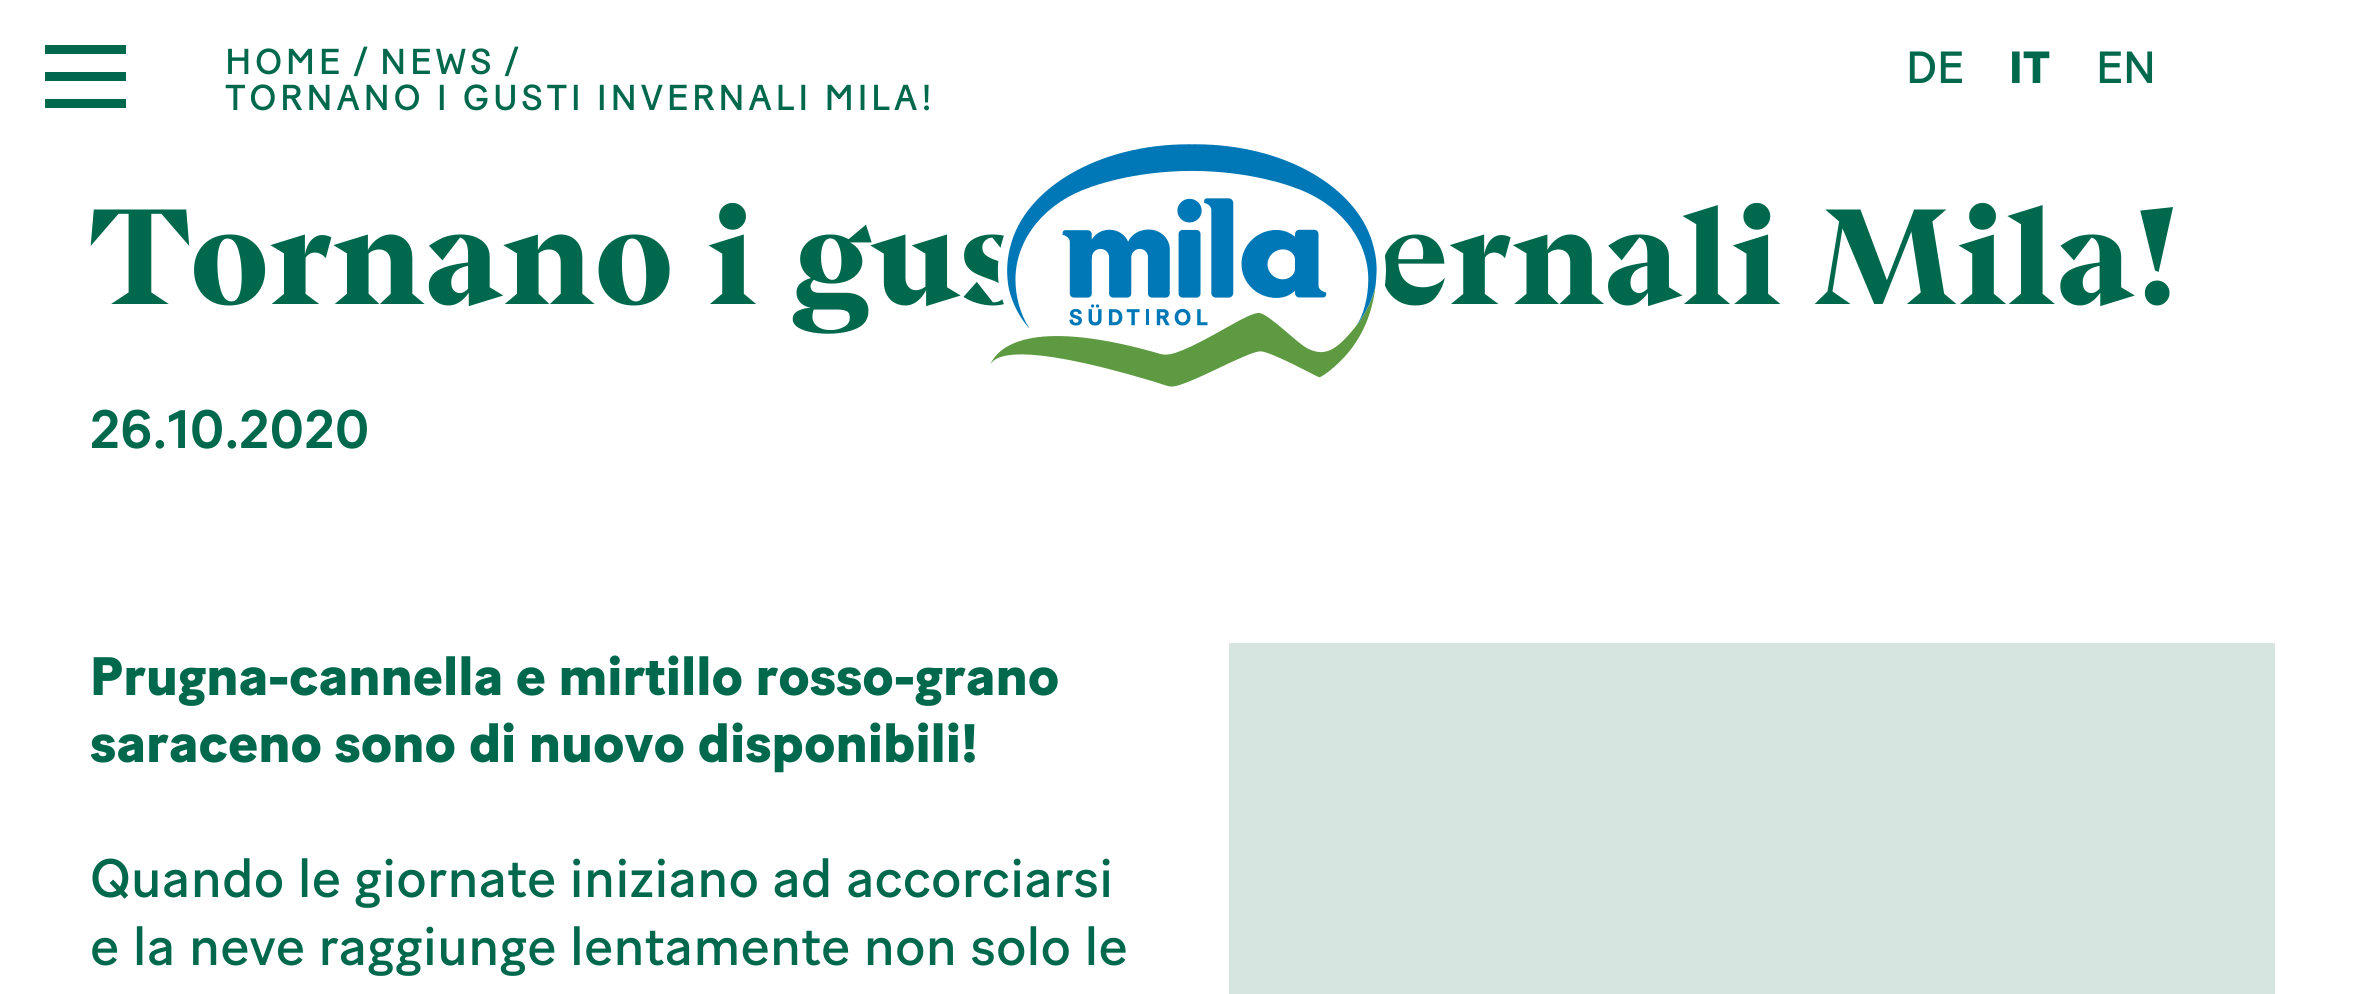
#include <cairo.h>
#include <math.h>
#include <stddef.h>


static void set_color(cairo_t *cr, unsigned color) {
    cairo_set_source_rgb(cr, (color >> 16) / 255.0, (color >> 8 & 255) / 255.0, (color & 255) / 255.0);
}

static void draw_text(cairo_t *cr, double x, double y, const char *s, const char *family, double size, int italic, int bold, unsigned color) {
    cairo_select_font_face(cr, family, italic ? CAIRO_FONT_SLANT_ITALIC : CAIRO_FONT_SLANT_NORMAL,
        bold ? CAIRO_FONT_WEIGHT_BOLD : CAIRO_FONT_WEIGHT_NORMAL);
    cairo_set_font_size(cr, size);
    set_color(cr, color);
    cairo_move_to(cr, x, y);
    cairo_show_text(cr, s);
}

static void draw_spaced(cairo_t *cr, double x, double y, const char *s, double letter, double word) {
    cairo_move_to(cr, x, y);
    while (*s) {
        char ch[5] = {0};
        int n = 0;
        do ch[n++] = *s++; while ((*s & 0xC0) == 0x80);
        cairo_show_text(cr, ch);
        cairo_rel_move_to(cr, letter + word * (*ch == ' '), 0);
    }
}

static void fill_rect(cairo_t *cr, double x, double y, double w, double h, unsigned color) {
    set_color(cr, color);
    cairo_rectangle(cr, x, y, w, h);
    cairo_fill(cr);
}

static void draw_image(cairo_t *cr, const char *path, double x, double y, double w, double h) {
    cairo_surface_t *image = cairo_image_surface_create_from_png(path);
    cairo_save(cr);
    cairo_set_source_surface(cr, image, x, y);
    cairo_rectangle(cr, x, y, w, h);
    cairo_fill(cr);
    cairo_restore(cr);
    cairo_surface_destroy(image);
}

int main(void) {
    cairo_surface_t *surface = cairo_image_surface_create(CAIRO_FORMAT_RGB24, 2363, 994);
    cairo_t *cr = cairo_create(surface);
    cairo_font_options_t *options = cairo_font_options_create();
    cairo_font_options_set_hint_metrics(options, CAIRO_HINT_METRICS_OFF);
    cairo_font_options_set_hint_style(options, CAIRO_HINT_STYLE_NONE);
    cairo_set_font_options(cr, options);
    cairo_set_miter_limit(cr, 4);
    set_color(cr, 0xFFFFFF);
    cairo_paint(cr);
    fill_rect(cr, 45, 72, 81, 9, 0x00684C);
    fill_rect(cr, 45, 45, 81, 9, 0x00684C);
    fill_rect(cr, 45, 99, 81, 9, 0x00684C);
    cairo_select_font_face(cr, "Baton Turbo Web", CAIRO_FONT_SLANT_NORMAL, CAIRO_FONT_WEIGHT_NORMAL);
    cairo_set_font_size(cr, 36);
    draw_spaced(cr, 225, 74, "HOME", 3.6, 0);
    draw_spaced(cr, 353, 74, "/", 3.6, 0);
    draw_spaced(cr, 380, 74, "NEWS", 3.6, 0);
    draw_spaced(cr, 504, 74, "/", 3.6, 0);
    draw_spaced(cr, 225, 110, "TORNANO I GUSTI INVERNALI MILA!", 3.6, 0);
    draw_text(cr, 1906, 83, "DE", "Baton Turbo Web", 45, 0, 0, 0x00684C);
    draw_text(cr, 2009, 83, "IT", "Baton Turbo Web Black", 45, 0, 0, 0x00684C);
    draw_text(cr, 2096, 83, "EN", "Baton Turbo Web", 45, 0, 0, 0x00684C);
    draw_text(cr, 90, 304, "Tornano i gus", "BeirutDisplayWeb", 135, 0, 1, 0x00684C);
    draw_text(cr, 1378, 304, "ernali Mila!", "BeirutDisplayWeb", 135, 0, 1, 0x00684C);
    draw_image(cr, "assets/img1.png", 990, 144, 396, 243);
    draw_text(cr, 90, 448, "26.10.2020", "Baton Turbo Web Medium", 54, 0, 0, 0x00684C);
    draw_text(cr, 90, 695, "Prugna-cannella e mirtillo rosso-grano", "Baton Turbo Web Black", 54, 0, 0, 0x00684C);
    draw_text(cr, 90, 762, "saraceno sono di nuovo disponibili!", "Baton Turbo Web Black", 54, 0, 0, 0x00684C);
    draw_text(cr, 90, 897, "Quando le giornate iniziano ad accorciarsi", "Baton Turbo Web", 54, 0, 0, 0x00684C);
    draw_text(cr, 90, 965, "e la neve raggiunge lentamente non solo le", "Baton Turbo Web", 54, 0, 0, 0x00684C);
    fill_rect(cr, 1229, 643, 1046, 351, 0xD7E5E1);
    cairo_surface_write_to_png(surface, "output.png");
    cairo_font_options_destroy(options);
    cairo_destroy(cr);
    cairo_surface_destroy(surface);
    return 0;
}
